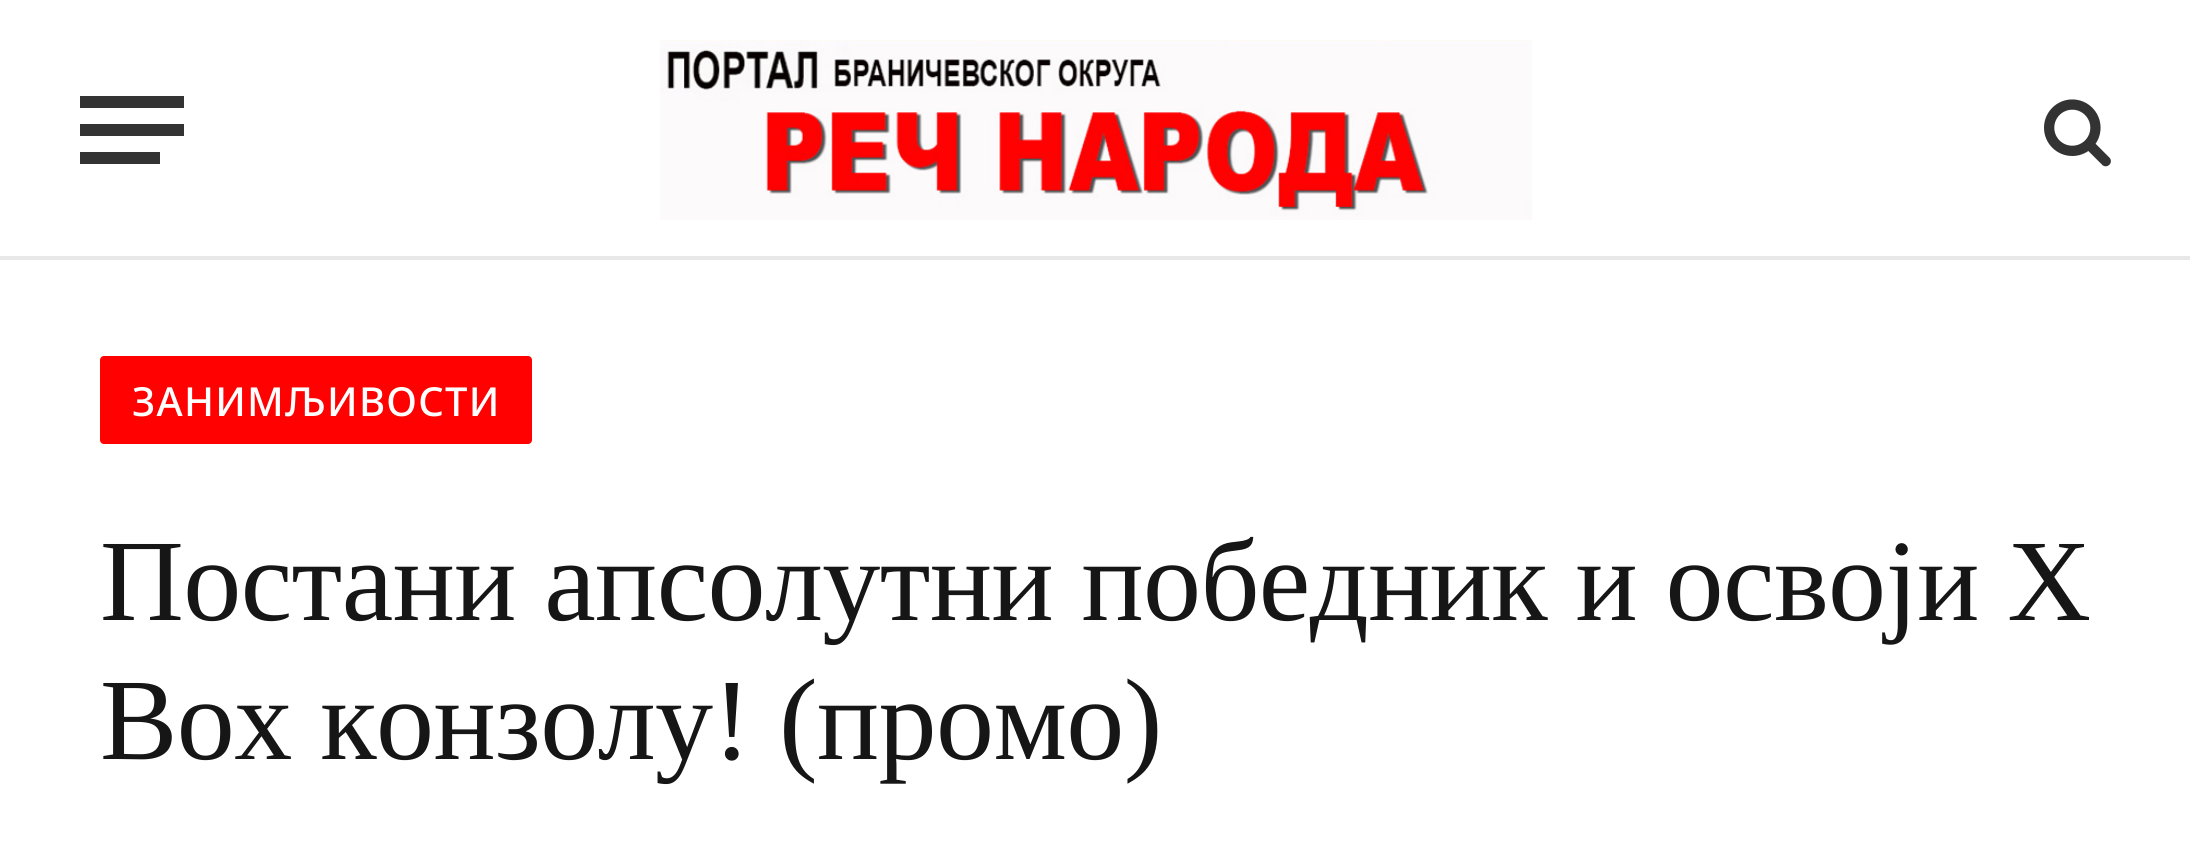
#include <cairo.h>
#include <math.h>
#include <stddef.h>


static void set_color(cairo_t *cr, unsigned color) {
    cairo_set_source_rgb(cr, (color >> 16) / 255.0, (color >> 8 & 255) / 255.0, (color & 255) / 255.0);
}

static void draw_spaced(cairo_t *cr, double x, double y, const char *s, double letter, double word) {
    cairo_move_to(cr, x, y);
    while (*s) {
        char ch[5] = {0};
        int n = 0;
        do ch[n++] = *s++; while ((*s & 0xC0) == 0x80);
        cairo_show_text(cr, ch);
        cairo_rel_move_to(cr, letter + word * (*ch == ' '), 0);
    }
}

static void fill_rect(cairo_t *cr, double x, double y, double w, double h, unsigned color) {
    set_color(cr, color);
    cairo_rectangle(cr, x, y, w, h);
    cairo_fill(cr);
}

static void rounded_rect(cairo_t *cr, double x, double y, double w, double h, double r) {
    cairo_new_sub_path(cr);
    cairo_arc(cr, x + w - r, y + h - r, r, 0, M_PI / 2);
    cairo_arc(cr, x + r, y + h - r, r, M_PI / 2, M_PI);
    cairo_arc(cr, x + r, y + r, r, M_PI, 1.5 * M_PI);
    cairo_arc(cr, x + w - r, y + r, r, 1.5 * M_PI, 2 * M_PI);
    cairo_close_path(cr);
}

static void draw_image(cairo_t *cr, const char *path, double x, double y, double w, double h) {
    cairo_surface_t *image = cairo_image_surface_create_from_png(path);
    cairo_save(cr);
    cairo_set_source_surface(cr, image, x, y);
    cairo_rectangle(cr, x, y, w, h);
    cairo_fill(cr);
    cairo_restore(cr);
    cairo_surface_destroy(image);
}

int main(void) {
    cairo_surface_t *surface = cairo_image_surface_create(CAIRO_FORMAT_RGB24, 2190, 843);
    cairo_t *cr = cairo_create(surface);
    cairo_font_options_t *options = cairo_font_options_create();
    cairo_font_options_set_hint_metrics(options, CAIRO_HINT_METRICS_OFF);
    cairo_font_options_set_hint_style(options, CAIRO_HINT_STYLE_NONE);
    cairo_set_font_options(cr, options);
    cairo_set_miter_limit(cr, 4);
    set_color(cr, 0xFFFFFF);
    cairo_paint(cr);
    fill_rect(cr, 0, 256, 2190, 4, 0xE8E8E8);
    fill_rect(cr, 80, 152, 80, 12, 0x333333);
    fill_rect(cr, 80, 96, 104, 12, 0x333333);
    fill_rect(cr, 80, 124, 104, 12, 0x333333);
    draw_image(cr, "assets/img1.png", 660, 40, 872, 180);
    draw_image(cr, "assets/img2.png", 2044, 99, 67, 68);
    set_color(cr, 0xFF0101);
    rounded_rect(cr, 100, 356, 432, 88, 4);
    cairo_fill(cr);
    cairo_select_font_face(cr, "Noto Sans Medium", CAIRO_FONT_SLANT_NORMAL, CAIRO_FONT_WEIGHT_NORMAL);
    cairo_set_font_size(cr, 40);
    set_color(cr, 0xFFFFFF);
    draw_spaced(cr, 132, 416, "ЗАНИМЉИВОСТИ", 1.25, 0);
    cairo_select_font_face(cr, "Liberation Serif", CAIRO_FONT_SLANT_NORMAL, CAIRO_FONT_WEIGHT_NORMAL);
    cairo_set_font_size(cr, 116.1);
    set_color(cr, 0x161616);
    draw_spaced(cr, 100, 620, "Постани апсолутни победник и освоји X", -0.6, 0);
    draw_spaced(cr, 100, 759, "Box конзолу! (промо)", -0.6, 0);
    cairo_surface_write_to_png(surface, "output.png");
    cairo_font_options_destroy(options);
    cairo_destroy(cr);
    cairo_surface_destroy(surface);
    return 0;
}
